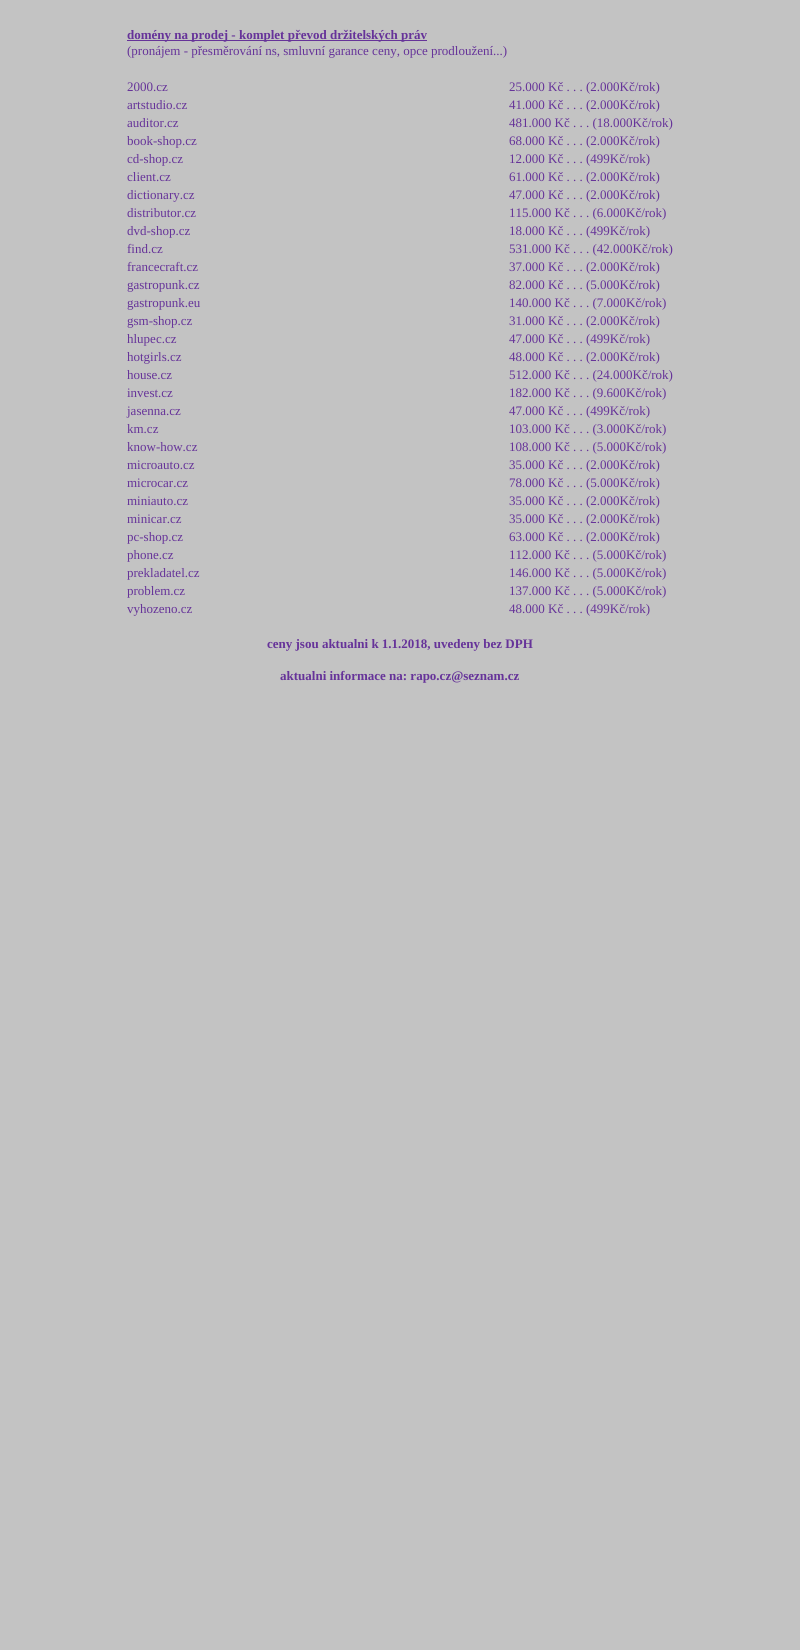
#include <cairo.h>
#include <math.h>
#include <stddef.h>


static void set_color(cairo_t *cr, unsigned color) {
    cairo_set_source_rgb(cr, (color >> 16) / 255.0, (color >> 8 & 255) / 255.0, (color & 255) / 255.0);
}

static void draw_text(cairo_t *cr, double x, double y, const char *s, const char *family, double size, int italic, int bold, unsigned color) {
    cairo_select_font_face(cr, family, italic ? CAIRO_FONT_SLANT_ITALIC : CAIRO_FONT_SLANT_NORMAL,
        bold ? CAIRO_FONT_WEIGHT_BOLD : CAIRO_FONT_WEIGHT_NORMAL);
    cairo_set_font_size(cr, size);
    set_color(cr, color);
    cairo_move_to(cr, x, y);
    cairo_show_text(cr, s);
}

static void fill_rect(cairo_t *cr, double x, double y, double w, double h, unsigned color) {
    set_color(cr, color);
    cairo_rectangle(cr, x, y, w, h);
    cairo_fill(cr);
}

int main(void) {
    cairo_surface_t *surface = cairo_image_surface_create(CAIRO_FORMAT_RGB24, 800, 1650);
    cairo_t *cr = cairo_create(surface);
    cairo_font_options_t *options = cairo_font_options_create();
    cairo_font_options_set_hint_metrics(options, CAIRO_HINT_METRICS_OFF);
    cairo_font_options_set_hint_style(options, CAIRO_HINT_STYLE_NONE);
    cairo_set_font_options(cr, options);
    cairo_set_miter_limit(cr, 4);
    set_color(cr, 0xC3C3C3);
    cairo_paint(cr);
    fill_rect(cr, 127, 40, 300, 1, 0x663399);
    draw_text(cr, 127, 39, "domény na prodej - komplet převod držitelských práv", "Liberation Serif", 13, 0, 1, 0x663399);
    draw_text(cr, 127, 55, "(pronájem - přesměrování ns, smluvní garance ceny, opce prodloužení...)", "Liberation Serif", 13, 0, 0, 0x663399);
    draw_text(cr, 127, 91, "2000.cz", "Liberation Serif", 13, 0, 0, 0x663399);
    draw_text(cr, 509, 91, "25.000 Kč . . . (2.000Kč/rok)", "Liberation Serif", 13, 0, 0, 0x663399);
    draw_text(cr, 127, 109, "artstudio.cz", "Liberation Serif", 13, 0, 0, 0x663399);
    draw_text(cr, 509, 109, "41.000 Kč . . . (2.000Kč/rok)", "Liberation Serif", 13, 0, 0, 0x663399);
    draw_text(cr, 127, 127, "auditor.cz", "Liberation Serif", 13, 0, 0, 0x663399);
    draw_text(cr, 509, 127, "481.000 Kč . . . (18.000Kč/rok)", "Liberation Serif", 13, 0, 0, 0x663399);
    draw_text(cr, 127, 145, "book-shop.cz", "Liberation Serif", 13, 0, 0, 0x663399);
    draw_text(cr, 509, 145, "68.000 Kč . . . (2.000Kč/rok)", "Liberation Serif", 13, 0, 0, 0x663399);
    draw_text(cr, 127, 163, "cd-shop.cz", "Liberation Serif", 13, 0, 0, 0x663399);
    draw_text(cr, 509, 163, "12.000 Kč . . . (499Kč/rok)", "Liberation Serif", 13, 0, 0, 0x663399);
    draw_text(cr, 127, 181, "client.cz", "Liberation Serif", 13, 0, 0, 0x663399);
    draw_text(cr, 509, 181, "61.000 Kč . . . (2.000Kč/rok)", "Liberation Serif", 13, 0, 0, 0x663399);
    draw_text(cr, 127, 199, "dictionary.cz", "Liberation Serif", 13, 0, 0, 0x663399);
    draw_text(cr, 509, 199, "47.000 Kč . . . (2.000Kč/rok)", "Liberation Serif", 13, 0, 0, 0x663399);
    draw_text(cr, 127, 217, "distributor.cz", "Liberation Serif", 13, 0, 0, 0x663399);
    draw_text(cr, 509, 217, "115.000 Kč . . . (6.000Kč/rok)", "Liberation Serif", 13, 0, 0, 0x663399);
    draw_text(cr, 127, 235, "dvd-shop.cz", "Liberation Serif", 13, 0, 0, 0x663399);
    draw_text(cr, 509, 235, "18.000 Kč . . . (499Kč/rok)", "Liberation Serif", 13, 0, 0, 0x663399);
    draw_text(cr, 127, 253, "find.cz", "Liberation Serif", 13, 0, 0, 0x663399);
    draw_text(cr, 509, 253, "531.000 Kč . . . (42.000Kč/rok)", "Liberation Serif", 13, 0, 0, 0x663399);
    draw_text(cr, 127, 271, "francecraft.cz", "Liberation Serif", 13, 0, 0, 0x663399);
    draw_text(cr, 509, 271, "37.000 Kč . . . (2.000Kč/rok)", "Liberation Serif", 13, 0, 0, 0x663399);
    draw_text(cr, 127, 289, "gastropunk.cz", "Liberation Serif", 13, 0, 0, 0x663399);
    draw_text(cr, 509, 289, "82.000 Kč . . . (5.000Kč/rok)", "Liberation Serif", 13, 0, 0, 0x663399);
    draw_text(cr, 127, 307, "gastropunk.eu", "Liberation Serif", 13, 0, 0, 0x663399);
    draw_text(cr, 509, 307, "140.000 Kč . . . (7.000Kč/rok)", "Liberation Serif", 13, 0, 0, 0x663399);
    draw_text(cr, 127, 325, "gsm-shop.cz", "Liberation Serif", 13, 0, 0, 0x663399);
    draw_text(cr, 509, 325, "31.000 Kč . . . (2.000Kč/rok)", "Liberation Serif", 13, 0, 0, 0x663399);
    draw_text(cr, 127, 343, "hlupec.cz", "Liberation Serif", 13, 0, 0, 0x663399);
    draw_text(cr, 509, 343, "47.000 Kč . . . (499Kč/rok)", "Liberation Serif", 13, 0, 0, 0x663399);
    draw_text(cr, 127, 361, "hotgirls.cz", "Liberation Serif", 13, 0, 0, 0x663399);
    draw_text(cr, 509, 361, "48.000 Kč . . . (2.000Kč/rok)", "Liberation Serif", 13, 0, 0, 0x663399);
    draw_text(cr, 127, 379, "house.cz", "Liberation Serif", 13, 0, 0, 0x663399);
    draw_text(cr, 509, 379, "512.000 Kč . . . (24.000Kč/rok)", "Liberation Serif", 13, 0, 0, 0x663399);
    draw_text(cr, 127, 397, "invest.cz", "Liberation Serif", 13, 0, 0, 0x663399);
    draw_text(cr, 509, 397, "182.000 Kč . . . (9.600Kč/rok)", "Liberation Serif", 13, 0, 0, 0x663399);
    draw_text(cr, 127, 415, "jasenna.cz", "Liberation Serif", 13, 0, 0, 0x663399);
    draw_text(cr, 509, 415, "47.000 Kč . . . (499Kč/rok)", "Liberation Serif", 13, 0, 0, 0x663399);
    draw_text(cr, 127, 433, "km.cz", "Liberation Serif", 13, 0, 0, 0x663399);
    draw_text(cr, 509, 433, "103.000 Kč . . . (3.000Kč/rok)", "Liberation Serif", 13, 0, 0, 0x663399);
    draw_text(cr, 127, 451, "know-how.cz", "Liberation Serif", 13, 0, 0, 0x663399);
    draw_text(cr, 509, 451, "108.000 Kč . . . (5.000Kč/rok)", "Liberation Serif", 13, 0, 0, 0x663399);
    draw_text(cr, 127, 469, "microauto.cz", "Liberation Serif", 13, 0, 0, 0x663399);
    draw_text(cr, 509, 469, "35.000 Kč . . . (2.000Kč/rok)", "Liberation Serif", 13, 0, 0, 0x663399);
    draw_text(cr, 127, 487, "microcar.cz", "Liberation Serif", 13, 0, 0, 0x663399);
    draw_text(cr, 509, 487, "78.000 Kč . . . (5.000Kč/rok)", "Liberation Serif", 13, 0, 0, 0x663399);
    draw_text(cr, 127, 505, "miniauto.cz", "Liberation Serif", 13, 0, 0, 0x663399);
    draw_text(cr, 509, 505, "35.000 Kč . . . (2.000Kč/rok)", "Liberation Serif", 13, 0, 0, 0x663399);
    draw_text(cr, 127, 523, "minicar.cz", "Liberation Serif", 13, 0, 0, 0x663399);
    draw_text(cr, 509, 523, "35.000 Kč . . . (2.000Kč/rok)", "Liberation Serif", 13, 0, 0, 0x663399);
    draw_text(cr, 127, 541, "pc-shop.cz", "Liberation Serif", 13, 0, 0, 0x663399);
    draw_text(cr, 509, 541, "63.000 Kč . . . (2.000Kč/rok)", "Liberation Serif", 13, 0, 0, 0x663399);
    draw_text(cr, 127, 559, "phone.cz", "Liberation Serif", 13, 0, 0, 0x663399);
    draw_text(cr, 509, 559, "112.000 Kč . . . (5.000Kč/rok)", "Liberation Serif", 13, 0, 0, 0x663399);
    draw_text(cr, 127, 577, "prekladatel.cz", "Liberation Serif", 13, 0, 0, 0x663399);
    draw_text(cr, 509, 577, "146.000 Kč . . . (5.000Kč/rok)", "Liberation Serif", 13, 0, 0, 0x663399);
    draw_text(cr, 127, 595, "problem.cz", "Liberation Serif", 13, 0, 0, 0x663399);
    draw_text(cr, 509, 595, "137.000 Kč . . . (5.000Kč/rok)", "Liberation Serif", 13, 0, 0, 0x663399);
    draw_text(cr, 127, 613, "vyhozeno.cz", "Liberation Serif", 13, 0, 0, 0x663399);
    draw_text(cr, 509, 613, "48.000 Kč . . . (499Kč/rok)", "Liberation Serif", 13, 0, 0, 0x663399);
    draw_text(cr, 267, 648, "ceny jsou aktualni k 1.1.2018, uvedeny bez DPH", "Liberation Serif", 13, 0, 1, 0x663399);
    draw_text(cr, 280, 680, "aktualni informace na: rapo.cz@seznam.cz", "Liberation Serif", 13, 0, 1, 0x663399);
    cairo_surface_write_to_png(surface, "output.png");
    cairo_font_options_destroy(options);
    cairo_destroy(cr);
    cairo_surface_destroy(surface);
    return 0;
}
